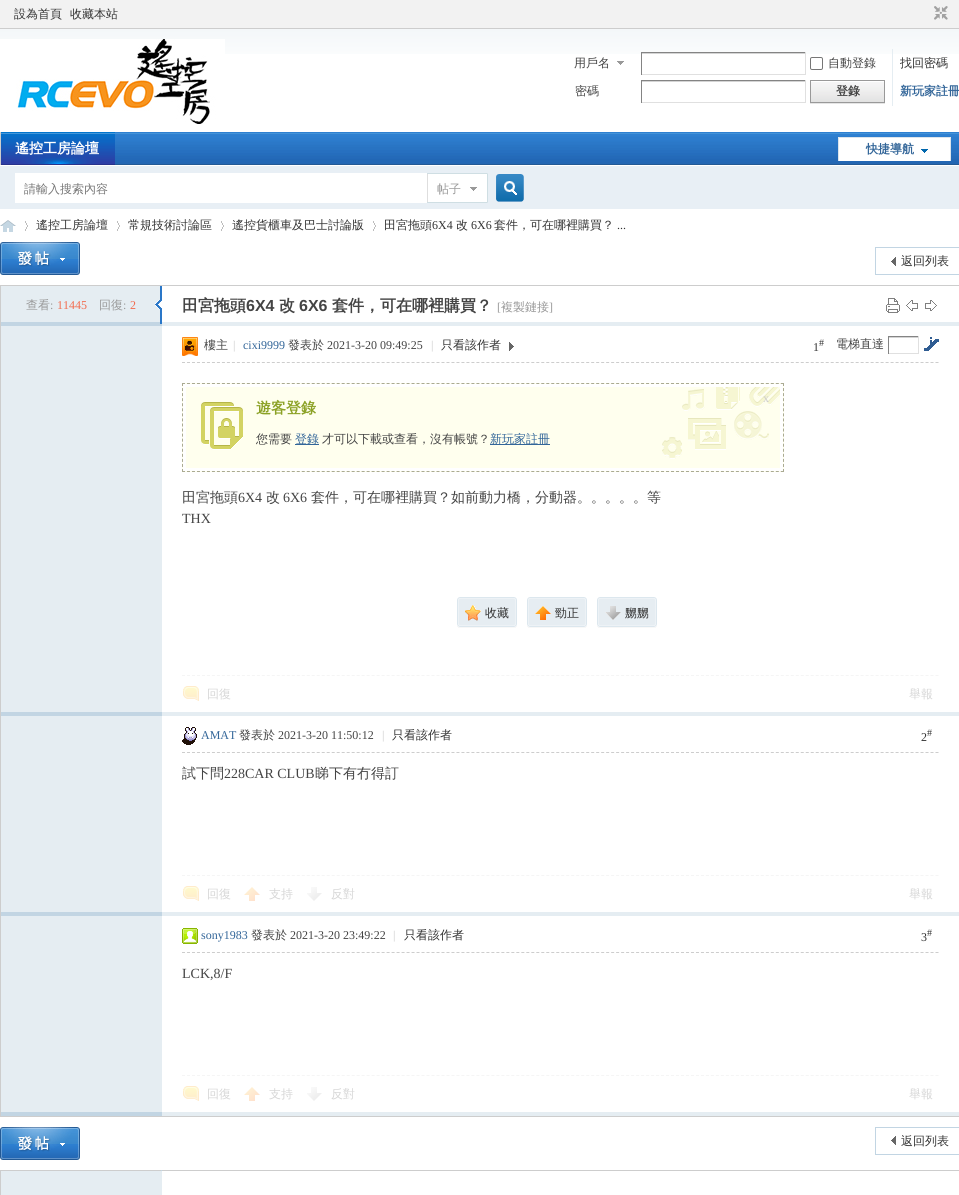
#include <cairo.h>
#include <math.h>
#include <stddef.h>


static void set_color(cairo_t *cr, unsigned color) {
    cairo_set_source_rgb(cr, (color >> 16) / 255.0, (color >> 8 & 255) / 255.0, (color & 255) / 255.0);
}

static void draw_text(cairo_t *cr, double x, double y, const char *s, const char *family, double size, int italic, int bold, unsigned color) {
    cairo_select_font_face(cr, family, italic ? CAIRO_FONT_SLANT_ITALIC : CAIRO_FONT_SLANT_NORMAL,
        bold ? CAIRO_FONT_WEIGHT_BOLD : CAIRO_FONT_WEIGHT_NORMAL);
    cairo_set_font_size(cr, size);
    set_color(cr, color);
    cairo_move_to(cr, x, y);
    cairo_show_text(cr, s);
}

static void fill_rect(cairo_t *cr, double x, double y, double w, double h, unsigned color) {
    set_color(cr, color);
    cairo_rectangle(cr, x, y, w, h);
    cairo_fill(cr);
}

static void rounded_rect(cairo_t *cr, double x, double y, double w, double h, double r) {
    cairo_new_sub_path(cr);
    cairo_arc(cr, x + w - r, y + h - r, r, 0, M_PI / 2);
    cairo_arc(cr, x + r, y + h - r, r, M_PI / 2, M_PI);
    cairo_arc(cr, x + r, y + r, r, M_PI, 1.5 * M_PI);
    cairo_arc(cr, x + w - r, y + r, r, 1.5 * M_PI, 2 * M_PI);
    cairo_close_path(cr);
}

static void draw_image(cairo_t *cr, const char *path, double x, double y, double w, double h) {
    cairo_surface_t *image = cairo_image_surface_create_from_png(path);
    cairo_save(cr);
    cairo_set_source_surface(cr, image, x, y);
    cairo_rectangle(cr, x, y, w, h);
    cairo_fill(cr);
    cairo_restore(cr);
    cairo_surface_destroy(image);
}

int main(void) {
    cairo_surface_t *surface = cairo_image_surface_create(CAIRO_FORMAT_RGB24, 959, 1195);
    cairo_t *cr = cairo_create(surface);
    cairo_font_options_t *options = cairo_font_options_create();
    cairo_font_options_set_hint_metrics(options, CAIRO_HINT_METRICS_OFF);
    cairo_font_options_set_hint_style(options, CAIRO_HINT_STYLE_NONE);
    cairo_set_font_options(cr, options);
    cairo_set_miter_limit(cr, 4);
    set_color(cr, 0xFFFFFF);
    cairo_paint(cr);
    draw_image(cr, "assets/img1.png", 0, 29, 959, 25);
    fill_rect(cr, 0, 0, 959, 28, 0xF2F2F2);
    fill_rect(cr, 0, 28, 959, 1, 0xCDCDCD);
    draw_text(cr, 14, 18, "設為首頁", "WenQuanYi Zen Hei Medium", 12, 0, 0, 0x333333);
    draw_text(cr, 70, 18, "收藏本站", "WenQuanYi Zen Hei Medium", 12, 0, 0, 0x333333);
    draw_image(cr, "assets/img2.png", 934, 6, 14, 14);
    draw_image(cr, "assets/img3.png", 0, 39, 225, 85);
    draw_image(cr, "assets/img4.png", 617, 61, 7, 4);
    draw_text(cr, 574, 67, "用戶名", "WenQuanYi Zen Hei Medium", 12, 0, 0, 0x444444);
    fill_rect(cr, 641, 53, 165, 1, 0xD4D4D4);
    fill_rect(cr, 641, 52, 165, 1, 0x848484);
    fill_rect(cr, 805, 52, 1, 23, 0xE0E0E0);
    fill_rect(cr, 641, 74, 165, 1, 0xE0E0E0);
    fill_rect(cr, 641, 52, 1, 23, 0x848484);
    rounded_rect(cr, 810.5, 57.5, 12, 12, 1.5);
    set_color(cr, 0x767676);
    cairo_set_line_width(cr, 1);
    cairo_stroke(cr);
    draw_text(cr, 828, 67, "自動登錄", "WenQuanYi Zen Hei Medium", 12, 0, 0, 0x444444);
    draw_text(cr, 900, 67, "找回密碼", "WenQuanYi Zen Hei Medium", 12, 0, 0, 0x333333);
    draw_text(cr, 575, 95, "密碼", "WenQuanYi Zen Hei Medium", 12, 0, 0, 0x444444);
    fill_rect(cr, 641, 81, 165, 1, 0xD4D4D4);
    fill_rect(cr, 641, 80, 165, 1, 0x848484);
    fill_rect(cr, 805, 80, 1, 23, 0xE0E0E0);
    fill_rect(cr, 641, 102, 165, 1, 0xE0E0E0);
    fill_rect(cr, 641, 80, 1, 23, 0x848484);
    fill_rect(cr, 892, 49, 1, 57, 0xE5EDF2);
    fill_rect(cr, 810, 103, 75, 1, 0xE5E5E5);
    draw_image(cr, "assets/img5.png", 811, 81, 73, 21);
    cairo_rectangle(cr, 810.5, 80.5, 74, 22);
    set_color(cr, 0x999999);
    cairo_stroke(cr);
    draw_text(cr, 836, 95, "登錄", "WenQuanYi Zen Hei", 12, 0, 1, 0x444444);
    draw_text(cr, 900, 95, "新玩家註冊", "WenQuanYi Zen Hei", 12, 0, 1, 0x336699);
    draw_image(cr, "assets/img6.png", 115, 132, 844, 33);
    fill_rect(cr, 0, 132, 1, 33, 0xCDCDCD);
    draw_image(cr, "assets/img7.png", 1, 132, 114, 33);
    draw_text(cr, 15, 153, "遙控工房論壇", "WenQuanYi Zen Hei", 14, 0, 1, 0xFFFFFF);
    draw_image(cr, "assets/img8.png", 838, 137, 113, 24);
    draw_text(cr, 866, 153, "快捷導航", "WenQuanYi Zen Hei", 12, 0, 1, 0x336699);
    fill_rect(cr, 0, 166, 959, 43, 0xE8EFF5);
    fill_rect(cr, 15, 173, 412, 30, 0xFFFFFF);
    draw_image(cr, "assets/img9.png", 496, 174, 28, 28);
    draw_text(cr, 24, 193, "請輸入搜索內容", "WenQuanYi Zen Hei Medium", 12, 0, 0, 0x757575);
    draw_image(cr, "assets/img10.png", 427, 173, 61, 30);
    draw_text(cr, 437, 193, "帖子", "WenQuanYi Zen Hei Medium", 12, 0, 0, 0x999999);
    draw_image(cr, "assets/img11.png", 0, 220, 16, 12);
    draw_image(cr, "assets/img12.png", 25, 221, 3, 10);
    draw_text(cr, 36, 229, "遙控工房論壇", "WenQuanYi Zen Hei Medium", 12, 0, 0, 0x333333);
    draw_image(cr, "assets/img12.png", 117, 221, 3, 10);
    draw_text(cr, 128, 229, "常規技術討論區", "WenQuanYi Zen Hei Medium", 12, 0, 0, 0x333333);
    draw_image(cr, "assets/img12.png", 221, 221, 3, 10);
    draw_text(cr, 232, 229, "遙控貨櫃車及巴士討論版", "WenQuanYi Zen Hei Medium", 12, 0, 0, 0x333333);
    draw_image(cr, "assets/img12.png", 373, 221, 3, 10);
    draw_text(cr, 384, 229, "田宮拖頭", "WenQuanYi Zen Hei Medium", 12, 0, 0, 0x333333);
    draw_text(cr, 432, 229, "6X4", "Liberation Serif", 12, 0, 0, 0x333333);
    draw_text(cr, 456, 229, "改", "WenQuanYi Zen Hei Medium", 12, 0, 0, 0x333333);
    draw_text(cr, 471, 229, "6X6", "Liberation Serif", 12, 0, 0, 0x333333);
    draw_text(cr, 494, 229, "套件，可在哪裡購買？", "WenQuanYi Zen Hei Medium", 12, 0, 0, 0x333333);
    draw_text(cr, 617, 229, "...", "Liberation Serif", 12, 0, 0, 0x333333);
    draw_image(cr, "assets/img13.png", 0, 242, 80, 33);
    draw_image(cr, "assets/img14.png", 891, 257, 5, 9);
    cairo_rectangle(cr, 875.5, 247.5, 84, 27);
    set_color(cr, 0xC2D5E3);
    cairo_stroke(cr);
    draw_text(cr, 901, 265, "返回列表", "WenQuanYi Zen Hei Medium", 12, 0, 0, 0x333333);
    cairo_rectangle(cr, 0.5, 285.5, 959, 831);
    set_color(cr, 0xCDCDCD);
    cairo_stroke(cr);
    fill_rect(cr, 1, 286, 159, 36, 0xE5EDF2);
    draw_text(cr, 26, 309, "查看", "WenQuanYi Zen Hei Medium", 12, 0, 0, 0x999999);
    draw_text(cr, 50, 309, ":", "Liberation Serif", 12, 0, 0, 0x999999);
    draw_text(cr, 57, 309, "11445", "Liberation Serif", 12, 0, 0, 0xF26C4F);
    draw_text(cr, 99, 309, "回復", "WenQuanYi Zen Hei Medium", 12, 0, 0, 0x999999);
    draw_text(cr, 123, 309, ":", "Liberation Serif", 12, 0, 0, 0x999999);
    draw_text(cr, 130, 309, "2", "Liberation Serif", 12, 0, 0, 0xF26C4F);
    fill_rect(cr, 1, 322, 161, 4, 0xC2D5E3);
    draw_image(cr, "assets/img15.png", 155, 286, 7, 38);
    draw_text(cr, 182, 311, "田宮拖頭", "WenQuanYi Zen Hei", 16, 0, 1, 0x444444);
    draw_text(cr, 246, 311, "6X4", "Liberation Sans", 16, 0, 1, 0x444444);
    draw_text(cr, 279, 311, "改", "WenQuanYi Zen Hei", 16, 0, 1, 0x444444);
    draw_text(cr, 299, 311, "6X6", "Liberation Sans", 16, 0, 1, 0x444444);
    draw_text(cr, 332, 311, "套件，可在哪裡購買？", "WenQuanYi Zen Hei", 16, 0, 1, 0x444444);
    draw_text(cr, 497, 311, "[", "Liberation Serif", 12, 0, 0, 0x999999);
    draw_text(cr, 501, 311, "複製鏈接", "WenQuanYi Zen Hei Medium", 12, 0, 0, 0x999999);
    draw_text(cr, 549, 311, "]", "Liberation Serif", 12, 0, 0, 0x999999);
    draw_image(cr, "assets/img16.png", 886, 298, 14, 15);
    draw_image(cr, "assets/img17.png", 906, 300, 12, 11);
    draw_image(cr, "assets/img18.png", 925, 300, 12, 11);
    fill_rect(cr, 162, 322, 797, 4, 0xE5EDF2);
    fill_rect(cr, 1, 326, 161, 386, 0xE5EDF2);
    cairo_new_path(cr);
    cairo_move_to(cr, 182, 362.5);
    cairo_line_to(cr, 939, 362.5);
    set_color(cr, 0xCDCDCD);
    cairo_set_dash(cr, (double[]){3, 1.99}, 2, 0);
    cairo_stroke(cr);
    draw_image(cr, "assets/img19.png", 182, 337, 16, 19);
    draw_text(cr, 204, 349, "樓主", "WenQuanYi Zen Hei Medium", 12, 0, 0, 0x444444);
    draw_text(cr, 233, 349, "|", "Liberation Serif", 12, 0, 0, 0xCCCCCC);
    draw_text(cr, 243, 349, "cixi9999", "Liberation Serif", 12, 0, 0, 0x336699);
    draw_text(cr, 288, 349, "發表於", "WenQuanYi Zen Hei Medium", 12, 0, 0, 0x444444);
    draw_text(cr, 327, 349, "2021-3-20 09:49:25", "Liberation Serif", 12, 0, 0, 0x444444);
    draw_text(cr, 431, 349, "|", "Liberation Serif", 12, 0, 0, 0xCCCCCC);
    draw_text(cr, 441, 349, "只看該作者", "WenQuanYi Zen Hei Medium", 12, 0, 0, 0x333333);
    draw_image(cr, "assets/img20.png", 509, 342, 5, 9);
    draw_text(cr, 813, 351, "1", "Liberation Serif", 12, 0, 0, 0x333333);
    draw_text(cr, 819, 346, "#", "Liberation Serif", 10, 0, 0, 0x333333);
    draw_text(cr, 836, 348, "電梯直達", "WenQuanYi Zen Hei Medium", 12, 0, 0, 0x444444);
    fill_rect(cr, 888, 337, 31, 1, 0xD4D4D4);
    fill_rect(cr, 888, 336, 31, 1, 0x848484);
    fill_rect(cr, 918, 336, 1, 18, 0xE0E0E0);
    fill_rect(cr, 888, 353, 31, 1, 0xE0E0E0);
    fill_rect(cr, 888, 336, 1, 18, 0x848484);
    draw_image(cr, "assets/img21.png", 924, 337, 15, 14);
    fill_rect(cr, 182, 383, 602, 89, 0xFFFFEE);
    draw_image(cr, "assets/img22.png", 662, 387, 118, 72);
    cairo_new_path(cr);
    cairo_move_to(cr, 182, 383.5);
    cairo_line_to(cr, 784, 383.5);
    set_color(cr, 0xAAAA92);
    cairo_stroke(cr);
    cairo_new_path(cr);
    cairo_move_to(cr, 783.5, 383);
    cairo_line_to(cr, 783.5, 472);
    cairo_set_dash(cr, (double[]){3, 2.06}, 2, 0);
    cairo_stroke(cr);
    cairo_new_path(cr);
    cairo_move_to(cr, 182, 471.5);
    cairo_line_to(cr, 784, 471.5);
    cairo_set_dash(cr, (double[]){3, 1.99}, 2, 0);
    cairo_stroke(cr);
    cairo_new_path(cr);
    cairo_move_to(cr, 182.5, 383);
    cairo_line_to(cr, 182.5, 472);
    cairo_set_dash(cr, (double[]){3, 2.06}, 2, 0);
    cairo_stroke(cr);
    draw_image(cr, "assets/img23.png", 201, 402, 42, 48);
    cairo_rectangle(cr, 184.5, 385.5, 597, 84);
    set_color(cr, 0xFFFFFF);
    cairo_set_line_width(cr, 3);
    cairo_set_dash(cr, NULL, 0, 0);
    cairo_stroke(cr);
    draw_text(cr, 763, 402, "x", "Liberation Serif", 12, 0, 0, 0xCCCCCC);
    draw_text(cr, 256, 413, "遊客登錄", "WenQuanYi Zen Hei", 15, 0, 1, 0x8CA226);
    draw_text(cr, 256, 443, "您需要", "WenQuanYi Zen Hei Medium", 12, 0, 0, 0x444444);
    fill_rect(cr, 295, 444, 24, 1, 0x336699);
    draw_text(cr, 295, 443, "登錄", "WenQuanYi Zen Hei Medium", 12, 0, 0, 0x336699);
    draw_text(cr, 322, 443, "才可以下載或查看，沒有帳號？", "WenQuanYi Zen Hei Medium", 12, 0, 0, 0x444444);
    fill_rect(cr, 490, 444, 60, 1, 0x336699);
    draw_text(cr, 490, 443, "新玩家註冊", "WenQuanYi Zen Hei Medium", 12, 0, 0, 0x336699);
    draw_text(cr, 182, 502, "田宮拖頭", "WenQuanYi Zen Hei Medium", 14, 0, 0, 0x444444);
    draw_text(cr, 238, 502, "6X4", "Liberation Serif", 14, 0, 0, 0x444444);
    draw_text(cr, 266, 502, "改", "WenQuanYi Zen Hei Medium", 14, 0, 0, 0x444444);
    draw_text(cr, 283, 502, "6X6", "Liberation Serif", 14, 0, 0, 0x444444);
    draw_text(cr, 311, 502, "套件，可在哪裡購買？如前動力橋，分動器。。。。。等", "WenQuanYi Zen Hei Medium", 14, 0, 0, 0x444444);
    draw_text(cr, 182, 523, "THX", "Liberation Serif", 14, 0, 0, 0x444444);
    draw_image(cr, "assets/img24.png", 457, 597, 26, 31);
    draw_image(cr, "assets/img25.png", 483, 597, 34, 31);
    draw_image(cr, "assets/img26.png", 465, 605, 16, 16);
    draw_text(cr, 485, 617, "收藏", "WenQuanYi Zen Hei Medium", 12, 0, 0, 0x333333);
    draw_image(cr, "assets/img24.png", 527, 597, 26, 31);
    draw_image(cr, "assets/img25.png", 553, 597, 34, 31);
    draw_image(cr, "assets/img27.png", 535, 606, 16, 14);
    draw_text(cr, 555, 617, "勁正", "WenQuanYi Zen Hei Medium", 12, 0, 0, 0x333333);
    draw_image(cr, "assets/img24.png", 597, 597, 26, 31);
    draw_image(cr, "assets/img25.png", 623, 597, 34, 31);
    draw_image(cr, "assets/img28.png", 605, 606, 16, 14);
    draw_text(cr, 625, 617, "嬲嬲", "WenQuanYi Zen Hei Medium", 12, 0, 0, 0x333333);
    cairo_new_path(cr);
    cairo_move_to(cr, 182, 675.5);
    cairo_line_to(cr, 939, 675.5);
    set_color(cr, 0xF5F5F5);
    cairo_set_line_width(cr, 1);
    cairo_set_dash(cr, (double[]){3, 1.99}, 2, 0);
    cairo_stroke(cr);
    draw_image(cr, "assets/img29.png", 183, 686, 16, 15);
    draw_text(cr, 207, 698, "回復", "WenQuanYi Zen Hei Medium", 12, 0, 0, 0xD6D6D6);
    draw_text(cr, 909, 698, "舉報", "WenQuanYi Zen Hei Medium", 12, 0, 0, 0xD6D6D6);
    fill_rect(cr, 1, 712, 161, 4, 0xC2D5E3);
    fill_rect(cr, 162, 712, 797, 4, 0xE5EDF2);
    fill_rect(cr, 1, 716, 161, 196, 0xE5EDF2);
    cairo_new_path(cr);
    cairo_move_to(cr, 182, 752.5);
    cairo_line_to(cr, 939, 752.5);
    set_color(cr, 0xCDCDCD);
    cairo_stroke(cr);
    draw_image(cr, "assets/img30.png", 182, 727, 15, 18);
    draw_text(cr, 201, 739, "AMAT", "Liberation Serif", 12, 0, 0, 0x336699);
    draw_text(cr, 239, 739, "發表於", "WenQuanYi Zen Hei Medium", 12, 0, 0, 0x444444);
    draw_text(cr, 278, 739, "2021-3-20 11:50:12", "Liberation Serif", 12, 0, 0, 0x444444);
    draw_text(cr, 382, 739, "|", "Liberation Serif", 12, 0, 0, 0xCCCCCC);
    draw_text(cr, 392, 739, "只看該作者", "WenQuanYi Zen Hei Medium", 12, 0, 0, 0x333333);
    draw_text(cr, 921, 741, "2", "Liberation Serif", 12, 0, 0, 0x333333);
    draw_text(cr, 927, 736, "#", "Liberation Serif", 10, 0, 0, 0x333333);
    draw_text(cr, 182, 778, "試下問", "WenQuanYi Zen Hei Medium", 14, 0, 0, 0x444444);
    draw_text(cr, 224, 778, "228CAR CLUB", "Liberation Serif", 14, 0, 0, 0x444444);
    draw_text(cr, 315, 778, "睇下有冇得訂", "WenQuanYi Zen Hei Medium", 14, 0, 0, 0x444444);
    cairo_new_path(cr);
    cairo_move_to(cr, 182, 875.5);
    cairo_line_to(cr, 939, 875.5);
    set_color(cr, 0xF5F5F5);
    cairo_stroke(cr);
    draw_image(cr, "assets/img29.png", 183, 886, 16, 15);
    draw_text(cr, 207, 898, "回復", "WenQuanYi Zen Hei Medium", 12, 0, 0, 0xD6D6D6);
    draw_image(cr, "assets/img31.png", 244, 887, 16, 14);
    draw_text(cr, 269, 898, "支持", "WenQuanYi Zen Hei Medium", 12, 0, 0, 0xD6D6D6);
    draw_image(cr, "assets/img32.png", 307, 887, 15, 14);
    draw_text(cr, 331, 898, "反對", "WenQuanYi Zen Hei Medium", 12, 0, 0, 0xD6D6D6);
    draw_text(cr, 909, 898, "舉報", "WenQuanYi Zen Hei Medium", 12, 0, 0, 0xD6D6D6);
    fill_rect(cr, 1, 912, 161, 4, 0xC2D5E3);
    fill_rect(cr, 162, 912, 797, 4, 0xE5EDF2);
    fill_rect(cr, 1, 916, 161, 196, 0xE5EDF2);
    cairo_new_path(cr);
    cairo_move_to(cr, 182, 952.5);
    cairo_line_to(cr, 939, 952.5);
    set_color(cr, 0xCDCDCD);
    cairo_stroke(cr);
    draw_image(cr, "assets/img33.png", 182, 928, 16, 16);
    draw_text(cr, 201, 939, "sony1983", "Liberation Serif", 12, 0, 0, 0x336699);
    draw_text(cr, 251, 939, "發表於", "WenQuanYi Zen Hei Medium", 12, 0, 0, 0x444444);
    draw_text(cr, 290, 939, "2021-3-20 23:49:22", "Liberation Serif", 12, 0, 0, 0x444444);
    draw_text(cr, 393, 939, "|", "Liberation Serif", 12, 0, 0, 0xCCCCCC);
    draw_text(cr, 404, 939, "只看該作者", "WenQuanYi Zen Hei Medium", 12, 0, 0, 0x333333);
    draw_text(cr, 921, 941, "3", "Liberation Serif", 12, 0, 0, 0x333333);
    draw_text(cr, 927, 936, "#", "Liberation Serif", 10, 0, 0, 0x333333);
    draw_text(cr, 182, 978, "LCK,8/F", "Liberation Serif", 14, 0, 0, 0x444444);
    cairo_new_path(cr);
    cairo_move_to(cr, 182, 1075.5);
    cairo_line_to(cr, 939, 1075.5);
    set_color(cr, 0xF5F5F5);
    cairo_stroke(cr);
    draw_image(cr, "assets/img29.png", 183, 1086, 16, 15);
    draw_text(cr, 207, 1098, "回復", "WenQuanYi Zen Hei Medium", 12, 0, 0, 0xD6D6D6);
    draw_image(cr, "assets/img31.png", 244, 1087, 16, 14);
    draw_text(cr, 269, 1098, "支持", "WenQuanYi Zen Hei Medium", 12, 0, 0, 0xD6D6D6);
    draw_image(cr, "assets/img32.png", 307, 1087, 15, 14);
    draw_text(cr, 331, 1098, "反對", "WenQuanYi Zen Hei Medium", 12, 0, 0, 0xD6D6D6);
    draw_text(cr, 909, 1098, "舉報", "WenQuanYi Zen Hei Medium", 12, 0, 0, 0xD6D6D6);
    fill_rect(cr, 1, 1112, 161, 4, 0xC2D5E3);
    fill_rect(cr, 162, 1112, 797, 4, 0xE5EDF2);
    draw_image(cr, "assets/img13.png", 0, 1127, 80, 33);
    draw_image(cr, "assets/img14.png", 891, 1136, 5, 9);
    cairo_rectangle(cr, 875.5, 1127.5, 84, 27);
    set_color(cr, 0xC2D5E3);
    cairo_set_dash(cr, NULL, 0, 0);
    cairo_stroke(cr);
    draw_text(cr, 901, 1145, "返回列表", "WenQuanYi Zen Hei Medium", 12, 0, 0, 0x333333);
    cairo_rectangle(cr, 0.5, 1170.5, 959, 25);
    set_color(cr, 0xCDCDCD);
    cairo_stroke(cr);
    fill_rect(cr, 161, 1170, 1, 1, 0xC2D5E3);
    fill_rect(cr, 1, 1171, 161, 24, 0xE5EDF2);
    cairo_surface_write_to_png(surface, "output.png");
    cairo_font_options_destroy(options);
    cairo_destroy(cr);
    cairo_surface_destroy(surface);
    return 0;
}
